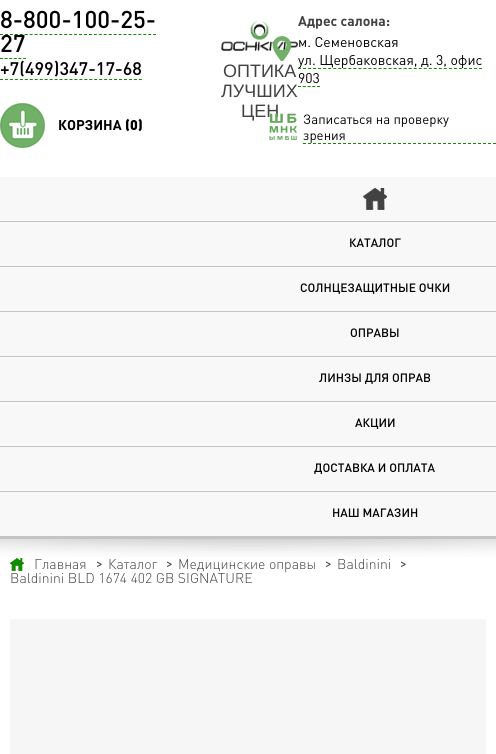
#include <cairo.h>
#include <math.h>
#include <stddef.h>


static void set_color(cairo_t *cr, unsigned color) {
    cairo_set_source_rgb(cr, (color >> 16) / 255.0, (color >> 8 & 255) / 255.0, (color & 255) / 255.0);
}

static void draw_text(cairo_t *cr, double x, double y, const char *s, const char *family, double size, int italic, int bold, unsigned color) {
    cairo_select_font_face(cr, family, italic ? CAIRO_FONT_SLANT_ITALIC : CAIRO_FONT_SLANT_NORMAL,
        bold ? CAIRO_FONT_WEIGHT_BOLD : CAIRO_FONT_WEIGHT_NORMAL);
    cairo_set_font_size(cr, size);
    set_color(cr, color);
    cairo_move_to(cr, x, y);
    cairo_show_text(cr, s);
}

static void fill_rect(cairo_t *cr, double x, double y, double w, double h, unsigned color) {
    set_color(cr, color);
    cairo_rectangle(cr, x, y, w, h);
    cairo_fill(cr);
}

static void draw_image(cairo_t *cr, const char *path, double x, double y, double w, double h) {
    cairo_surface_t *image = cairo_image_surface_create_from_png(path);
    cairo_save(cr);
    cairo_set_source_surface(cr, image, x, y);
    cairo_rectangle(cr, x, y, w, h);
    cairo_fill(cr);
    cairo_restore(cr);
    cairo_surface_destroy(image);
}

int main(void) {
    cairo_surface_t *surface = cairo_image_surface_create(CAIRO_FORMAT_RGB24, 496, 754);
    cairo_t *cr = cairo_create(surface);
    cairo_font_options_t *options = cairo_font_options_create();
    cairo_font_options_set_hint_metrics(options, CAIRO_HINT_METRICS_OFF);
    cairo_font_options_set_hint_style(options, CAIRO_HINT_STYLE_NONE);
    cairo_set_font_options(cr, options);
    cairo_set_miter_limit(cr, 4);
    set_color(cr, 0xFFFFFF);
    cairo_paint(cr);
    draw_text(cr, 0, 28, "8-800-100-25-", "DIN Medium", 24, 0, 0, 0x000000);
    cairo_new_path(cr);
    cairo_move_to(cr, 0, 34.5);
    cairo_line_to(cr, 156, 34.5);
    set_color(cr, 0x118B00);
    cairo_set_line_width(cr, 1);
    cairo_set_dash(cr, (double[]){3, 1.94}, 2, 0);
    cairo_stroke(cr);
    draw_text(cr, 0, 52, "27", "DIN Medium", 24, 0, 0, 0x000000);
    cairo_new_path(cr);
    cairo_move_to(cr, 0, 58.5);
    cairo_line_to(cr, 26, 58.5);
    set_color(cr, 0x118B00);
    cairo_set_dash(cr, (double[]){3, 1.6}, 2, 0);
    cairo_stroke(cr);
    draw_text(cr, 0, 75, "+7(499)347-17-68", "DIN Medium", 18, 0, 0, 0x000000);
    cairo_new_path(cr);
    cairo_move_to(cr, 0, 79.5);
    cairo_line_to(cr, 142, 79.5);
    set_color(cr, 0x118B00);
    cairo_set_dash(cr, (double[]){3, 1.96}, 2, 0);
    cairo_stroke(cr);
    draw_image(cr, "assets/img1.png", 0, 103, 45, 45);
    draw_text(cr, 58, 130, "КОРЗИНА", "DIN", 14, 0, 1, 0x000000);
    draw_text(cr, 125, 130, "(0)", "DIN Black", 14, 0, 0, 0x000000);
    draw_image(cr, "assets/img2.png", 221, 21, 77, 30);
    draw_text(cr, 223, 77, "ОПТИКА", "Liberation Sans", 18, 0, 0, 0x424242);
    draw_text(cr, 221, 97, "ЛУЧШИХ", "Liberation Sans", 18, 0, 0, 0x424242);
    draw_text(cr, 241, 117, "ЦЕН", "Liberation Sans", 18, 0, 0, 0x424242);
    draw_text(cr, 298, 26, "Адрес салона:", "DIN", 14, 0, 1, 0x424242);
    cairo_new_path(cr);
    cairo_move_to(cr, 298, 68.5);
    cairo_line_to(cr, 482, 68.5);
    set_color(cr, 0x118B00);
    cairo_set_dash(cr, (double[]){3, 2.03}, 2, 0);
    cairo_stroke(cr);
    cairo_new_path(cr);
    cairo_move_to(cr, 298, 86.5);
    cairo_line_to(cr, 320, 86.5);
    cairo_set_dash(cr, (double[]){3, 1.75}, 2, 0);
    cairo_stroke(cr);
    draw_image(cr, "assets/img3.png", 272, 36, 20, 25);
    draw_text(cr, 298, 47, "м. Семеновская", "DIN", 14, 0, 0, 0x000000);
    draw_text(cr, 298, 65, "ул. Щербаковская, д. 3, офис", "DIN", 14, 0, 0, 0x000000);
    draw_text(cr, 298, 83, "903", "DIN", 14, 0, 0, 0x000000);
    cairo_new_path(cr);
    cairo_move_to(cr, 303, 143.5);
    cairo_line_to(cr, 496, 143.5);
    set_color(cr, 0x118B00);
    cairo_set_dash(cr, (double[]){3, 2}, 2, 0);
    cairo_stroke(cr);
    draw_image(cr, "assets/img4.png", 269, 113, 28, 27);
    draw_text(cr, 303, 124, "Записаться на проверку", "DIN", 13.25, 0, 0, 0x000000);
    draw_text(cr, 303, 140, "зрения", "DIN", 13.25, 0, 0, 0x000000);
    fill_rect(cr, 0, 177, 496, 359, 0xF8F8F8);
    fill_rect(cr, 0, 536, 496, 3, 0xC4C4C4);
    fill_rect(cr, 0, 221, 496, 1, 0xC4C4C4);
    draw_image(cr, "assets/img5.png", 363, 188, 24, 22);
    fill_rect(cr, 0, 266, 496, 1, 0xC4C4C4);
    draw_text(cr, 349, 247, "КАТАЛОГ", "DIN Medium", 12, 0, 0, 0x000000);
    fill_rect(cr, 0, 311, 496, 1, 0xC4C4C4);
    draw_text(cr, 300, 292, "СОЛНЦЕЗАЩИТНЫЕ ОЧКИ", "DIN Medium", 12, 0, 0, 0x000000);
    fill_rect(cr, 0, 356, 496, 1, 0xC4C4C4);
    draw_text(cr, 350, 337, "ОПРАВЫ", "DIN Medium", 12, 0, 0, 0x000000);
    fill_rect(cr, 0, 401, 496, 1, 0xC4C4C4);
    draw_text(cr, 319, 382, "ЛИНЗЫ ДЛЯ ОПРАВ", "DIN Medium", 12, 0, 0, 0x000000);
    fill_rect(cr, 0, 446, 496, 1, 0xC4C4C4);
    draw_text(cr, 355, 427, "АКЦИИ", "DIN Medium", 12, 0, 0, 0x000000);
    fill_rect(cr, 0, 491, 496, 1, 0xC4C4C4);
    draw_text(cr, 314, 472, "ДОСТАВКА И ОПЛАТА", "DIN Medium", 12, 0, 0, 0x000000);
    draw_text(cr, 332, 517, "НАШ МАГАЗИН", "DIN Medium", 12, 0, 0, 0x000000);
    draw_image(cr, "assets/img6.png", 0, 539, 496, 18);
    draw_image(cr, "assets/img7.png", 10, 558, 14, 13);
    draw_text(cr, 34, 569, "Главная", "DIN Light", 14, 0, 0, 0x424242);
    draw_image(cr, "assets/img8.png", 97, 561, 5, 6);
    draw_text(cr, 108, 569, "Каталог", "DIN Light", 14, 0, 0, 0x424242);
    draw_image(cr, "assets/img8.png", 167, 561, 5, 6);
    draw_text(cr, 178, 569, "Медицинские оправы", "DIN Light", 14, 0, 0, 0x424242);
    draw_image(cr, "assets/img8.png", 326, 561, 5, 6);
    draw_text(cr, 337, 569, "Baldinini", "DIN Light", 14, 0, 0, 0x424242);
    draw_image(cr, "assets/img8.png", 401, 561, 5, 6);
    draw_text(cr, 10, 583, "Baldinini BLD 1674 402 GB SIGNATURE", "DIN Light", 14, 0, 0, 0x424242);
    fill_rect(cr, 10, 619, 476, 135, 0xF6F6F6);
    cairo_surface_write_to_png(surface, "output.png");
    cairo_font_options_destroy(options);
    cairo_destroy(cr);
    cairo_surface_destroy(surface);
    return 0;
}
